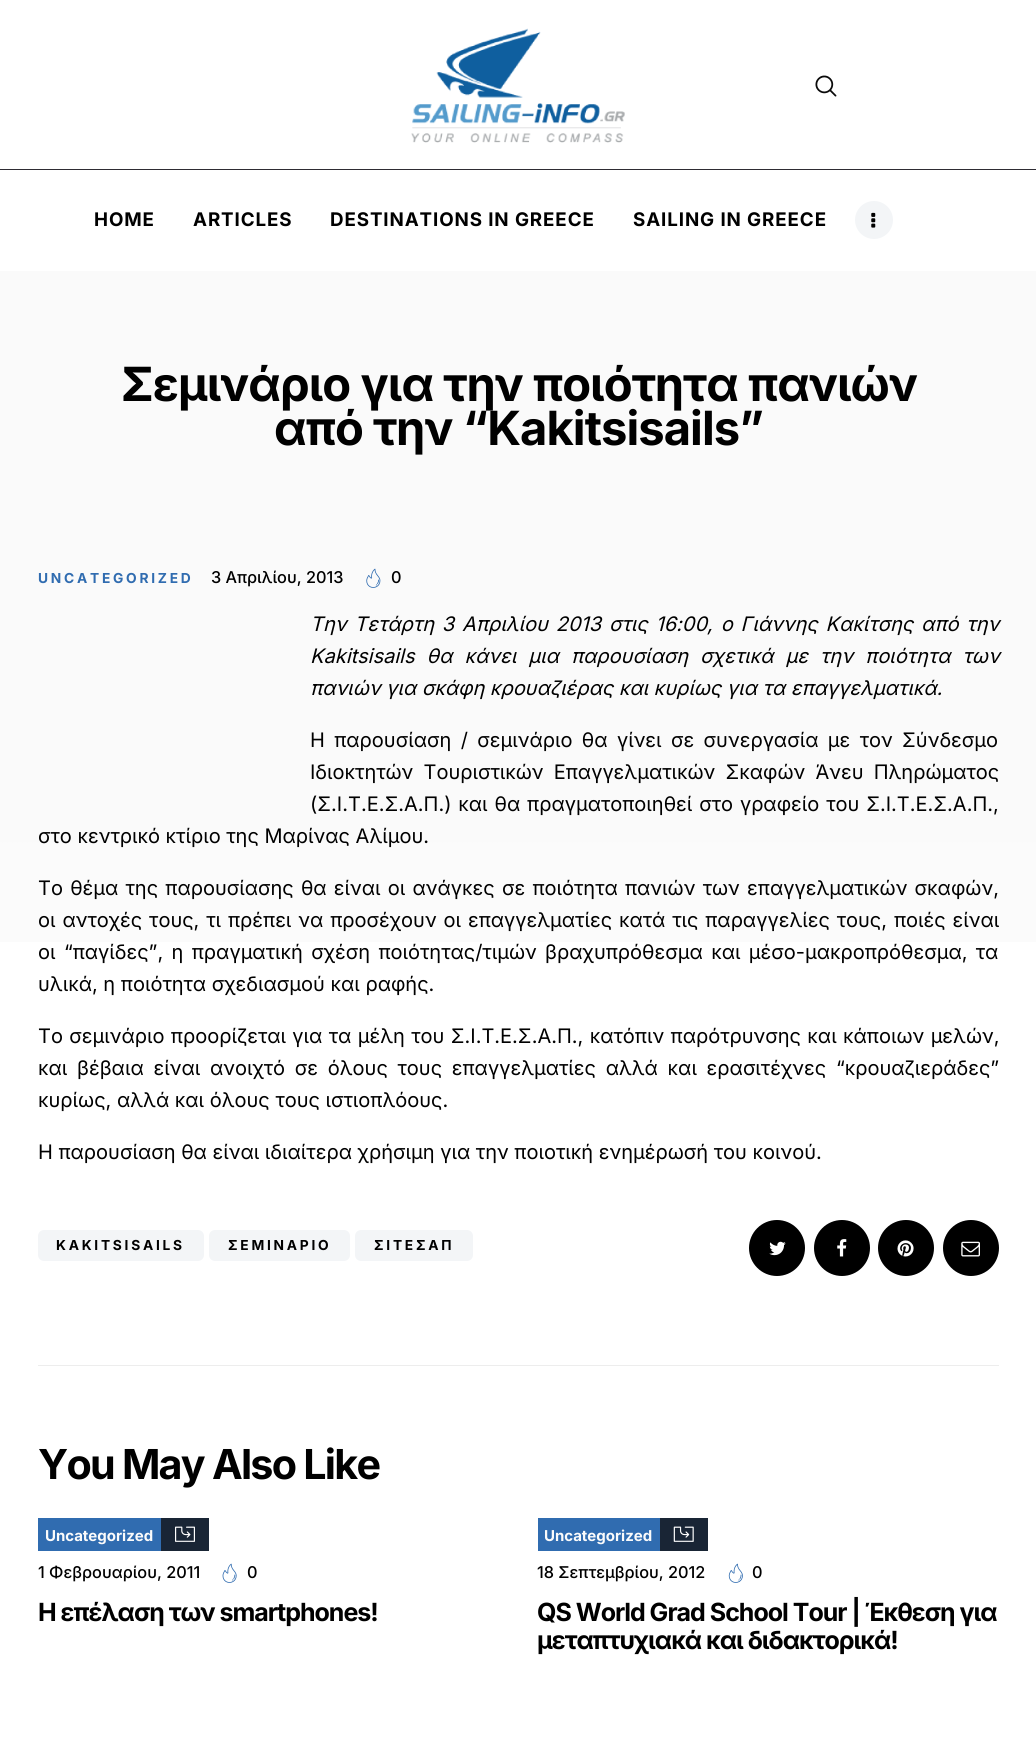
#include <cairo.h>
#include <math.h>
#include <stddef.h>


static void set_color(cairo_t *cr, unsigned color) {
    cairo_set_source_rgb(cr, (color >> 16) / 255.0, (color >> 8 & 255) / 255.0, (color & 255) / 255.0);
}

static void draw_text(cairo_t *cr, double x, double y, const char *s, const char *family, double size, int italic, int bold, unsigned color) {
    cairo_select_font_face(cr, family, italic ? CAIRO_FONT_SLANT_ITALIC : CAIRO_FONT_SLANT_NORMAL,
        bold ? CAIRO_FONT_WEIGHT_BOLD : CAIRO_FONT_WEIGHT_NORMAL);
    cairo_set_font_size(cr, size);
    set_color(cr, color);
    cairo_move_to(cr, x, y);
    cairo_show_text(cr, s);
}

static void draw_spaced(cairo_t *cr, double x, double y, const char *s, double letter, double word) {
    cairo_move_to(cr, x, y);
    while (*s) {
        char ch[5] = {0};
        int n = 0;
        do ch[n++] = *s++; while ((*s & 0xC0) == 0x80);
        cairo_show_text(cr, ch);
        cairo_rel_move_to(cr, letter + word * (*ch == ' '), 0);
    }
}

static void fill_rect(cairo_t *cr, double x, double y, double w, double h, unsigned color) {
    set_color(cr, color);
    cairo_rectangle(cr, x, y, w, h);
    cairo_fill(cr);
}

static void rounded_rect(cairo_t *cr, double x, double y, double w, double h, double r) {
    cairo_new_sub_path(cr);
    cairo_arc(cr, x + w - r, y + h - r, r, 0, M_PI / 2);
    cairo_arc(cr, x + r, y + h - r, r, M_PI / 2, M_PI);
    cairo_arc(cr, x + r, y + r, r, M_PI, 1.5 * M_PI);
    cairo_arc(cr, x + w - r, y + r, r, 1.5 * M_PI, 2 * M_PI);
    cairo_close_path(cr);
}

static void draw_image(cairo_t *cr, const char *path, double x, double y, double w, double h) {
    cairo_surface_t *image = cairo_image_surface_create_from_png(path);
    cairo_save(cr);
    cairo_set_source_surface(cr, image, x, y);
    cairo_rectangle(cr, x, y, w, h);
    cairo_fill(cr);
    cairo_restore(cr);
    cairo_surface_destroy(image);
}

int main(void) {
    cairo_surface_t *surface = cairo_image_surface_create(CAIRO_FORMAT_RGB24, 1036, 1748);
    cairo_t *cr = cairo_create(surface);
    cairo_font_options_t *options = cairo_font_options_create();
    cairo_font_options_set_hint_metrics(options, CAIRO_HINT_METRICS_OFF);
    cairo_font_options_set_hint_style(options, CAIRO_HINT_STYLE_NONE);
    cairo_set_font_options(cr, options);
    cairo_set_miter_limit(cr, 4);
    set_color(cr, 0xFFFFFF);
    cairo_paint(cr);
    fill_rect(cr, 0, 169, 1036, 1, 0x2E2C33);
    draw_image(cr, "assets/img1.png", 411, 28, 214, 115);
    draw_image(cr, "assets/img2.png", 815, 75, 22, 22);
    cairo_select_font_face(cr, "Inter", CAIRO_FONT_SLANT_NORMAL, CAIRO_FONT_WEIGHT_BOLD);
    cairo_set_font_size(cr, 18.75);
    set_color(cr, 0x000000);
    draw_spaced(cr, 94, 226, "HOME", 0.9, 0);
    draw_spaced(cr, 193, 226, "ARTICLES", 0.9, 0);
    draw_spaced(cr, 330, 226, "DESTINATIONS IN GREECE", 0.9, 0);
    draw_spaced(cr, 633, 226, "SAILING IN GREECE", 0.9, 0);
    set_color(cr, 0xF3F5F7);
    cairo_new_path(cr);
    cairo_arc(cr, 874, 220, 19, 0, 2 * M_PI);
    cairo_fill(cr);
    draw_image(cr, "assets/img3.png", 871, 212, 5, 16);
    draw_image(cr, "assets/img4.png", 0, 271, 1036, 671);
    cairo_set_font_size(cr, 47.1);
    set_color(cr, 0x000000);
    draw_spaced(cr, 121, 401, "Σεμινάριο για την ποιότητα πανιών", -0.95, 0);
    draw_spaced(cr, 274, 445, "από την “Kakitsisails”", -0.95, 0);
    cairo_set_font_size(cr, 13.75);
    set_color(cr, 0x306CB0);
    draw_spaced(cr, 38, 583, "UNCATEGORIZED", 2.75, 0);
    draw_text(cr, 211, 583, "3 Απριλίου, 2013", "Inter Medium", 16.25, 0, 0, 0x000000);
    draw_image(cr, "assets/img5.png", 366, 568, 15, 20);
    draw_text(cr, 391, 583, "0", "Inter Medium", 16.25, 0, 0, 0x000000);
    cairo_select_font_face(cr, "Inter", CAIRO_FONT_SLANT_ITALIC, CAIRO_FONT_WEIGHT_NORMAL);
    cairo_set_font_size(cr, 20);
    draw_spaced(cr, 310, 631, "Την Τετάρτη 3 Απριλίου 2013 στις 16:00, ο Γιάννης Κακίτσης από την", 0, 2.25);
    draw_spaced(cr, 310, 663, "Kakitsisails θα κάνει μια παρουσίαση σχετικά με την ποιότητα των", 0, 6.5);
    draw_text(cr, 310, 695, "πανιών για σκάφη κρουαζιέρας και κυρίως για τα επαγγελματικά.", "Inter", 20, 1, 0, 0x000000);
    cairo_select_font_face(cr, "Inter", CAIRO_FONT_SLANT_NORMAL, CAIRO_FONT_WEIGHT_NORMAL);
    draw_spaced(cr, 310, 747, "Η παρουσίαση / σεμινάριο θα γίνει σε συνεργασία με τον Σύνδεσμο", 0, 3.75);
    draw_spaced(cr, 310, 779, "Ιδιοκτητών Τουριστικών Επαγγελματικών Σκαφών Άνευ Πληρώματος", 0, 4.5);
    draw_spaced(cr, 310, 811, "(Σ.Ι.Τ.Ε.Σ.Α.Π.) και θα πραγματοποιηθεί στο γραφείο του Σ.Ι.Τ.Ε.Σ.Α.Π.,", 0, 1.25);
    draw_text(cr, 38, 843, "στο κεντρικό κτίριο της Μαρίνας Αλίμου.", "Inter", 20, 0, 0, 0x000000);
    draw_spaced(cr, 38, 895, "Το θέμα της παρουσίασης θα είναι οι ανάγκες σε ποιότητα πανιών των επαγγελματικών σκαφών,", 0, 1.6);
    draw_spaced(cr, 38, 927, "οι αντοχές τους, τι πρέπει να προσέχουν οι επαγγελματίες κατά τις παραγγελίες τους, ποιές είναι", 0, 1.25);
    draw_spaced(cr, 38, 959, "οι “παγίδες”, η πραγματική σχέση ποιότητας/τιμών βραχυπρόθεσμα και μέσο-μακροπρόθεσμα, τα", 0, 2.75);
    draw_text(cr, 38, 991, "υλικά, η ποιότητα σχεδιασμού και ραφής.", "Inter", 20, 0, 0, 0x000000);
    draw_spaced(cr, 38, 1043, "Το σεμινάριο προορίζεται για τα μέλη του Σ.Ι.Τ.Ε.Σ.Α.Π., κατόπιν παρότρυνσης και κάποιων μελών,", 0, 0.75);
    draw_spaced(cr, 38, 1075, "και βέβαια είναι ανοιχτό σε όλους τους επαγγελματίες αλλά και ερασιτέχνες “κρουαζιεράδες”", 0, 4.1);
    draw_text(cr, 38, 1107, "κυρίως, αλλά και όλους τους ιστιοπλόους.", "Inter", 20, 0, 0, 0x000000);
    draw_text(cr, 38, 1159, "Η παρουσίαση θα είναι ιδιαίτερα χρήσιμη για την ποιοτική ενημέρωσή του κοινού.", "Inter", 20, 0, 0, 0x000000);
    set_color(cr, 0xF3F5F7);
    rounded_rect(cr, 38, 1230, 166, 31, 6);
    cairo_fill(cr);
    cairo_select_font_face(cr, "Inter", CAIRO_FONT_SLANT_NORMAL, CAIRO_FONT_WEIGHT_BOLD);
    cairo_set_font_size(cr, 13.75);
    set_color(cr, 0x000000);
    draw_spaced(cr, 56, 1250, "KAKITSISAILS", 2.75, 0);
    set_color(cr, 0xF3F5F7);
    rounded_rect(cr, 209, 1230, 141, 31, 6);
    cairo_fill(cr);
    set_color(cr, 0x000000);
    draw_spaced(cr, 228, 1250, "ΣΕΜΙΝΑΡΙΟ", 2.75, 0);
    set_color(cr, 0xF3F5F7);
    rounded_rect(cr, 355, 1230, 118, 31, 6);
    cairo_fill(cr);
    set_color(cr, 0x000000);
    draw_spaced(cr, 374, 1250, "ΣΙΤΕΣΑΠ", 2.75, 0);
    cairo_new_path(cr);
    cairo_arc(cr, 777, 1248, 28, 0, 2 * M_PI);
    cairo_fill(cr);
    draw_image(cr, "assets/img6.png", 769, 1241, 17, 15);
    cairo_arc(cr, 842, 1248, 28, 0, 2 * M_PI);
    cairo_fill(cr);
    draw_image(cr, "assets/img7.png", 837, 1239, 10, 18);
    cairo_arc(cr, 906, 1248, 28, 0, 2 * M_PI);
    cairo_fill(cr);
    draw_image(cr, "assets/img8.png", 897, 1240, 17, 17);
    cairo_arc(cr, 971, 1248, 28, 0, 2 * M_PI);
    cairo_fill(cr);
    draw_image(cr, "assets/img9.png", 961, 1241, 19, 16);
    fill_rect(cr, 38, 1365, 961, 1, 0xEDEDED);
    cairo_set_font_size(cr, 41.25);
    set_color(cr, 0x000000);
    draw_spaced(cr, 38, 1479, "You May Also Like", -1.75, 0);
    fill_rect(cr, 38, 1518, 123, 33, 0x306CB0);
    draw_text(cr, 45, 1541, "Uncategorized", "Inter", 15, 0, 1, 0xFBFBFB);
    fill_rect(cr, 161, 1518, 48, 33, 0x192535);
    draw_image(cr, "assets/img10.png", 175, 1526, 20, 16);
    draw_text(cr, 38, 1578, "1 Φεβρουαρίου, 2011", "Inter Medium", 16.25, 0, 0, 0x000000);
    draw_image(cr, "assets/img11.png", 222, 1563, 15, 20);
    draw_text(cr, 247, 1578, "0", "Inter Medium", 16.25, 0, 0, 0x000000);
    cairo_select_font_face(cr, "Inter", CAIRO_FONT_SLANT_NORMAL, CAIRO_FONT_WEIGHT_BOLD);
    cairo_set_font_size(cr, 25);
    draw_spaced(cr, 38, 1621, "Η επέλαση των smartphones!", -1, 0);
    fill_rect(cr, 538, 1518, 122, 33, 0x306CB0);
    draw_text(cr, 544, 1541, "Uncategorized", "Inter", 15, 0, 1, 0xFBFBFB);
    fill_rect(cr, 660, 1518, 48, 33, 0x192535);
    draw_image(cr, "assets/img12.png", 673, 1526, 21, 16);
    draw_text(cr, 537, 1578, "18 Σεπτεμβρίου, 2012", "Inter Medium", 16.25, 0, 0, 0x000000);
    draw_image(cr, "assets/img13.png", 728, 1563, 15, 20);
    draw_text(cr, 752, 1578, "0", "Inter Medium", 16.25, 0, 0, 0x000000);
    cairo_select_font_face(cr, "Inter", CAIRO_FONT_SLANT_NORMAL, CAIRO_FONT_WEIGHT_BOLD);
    cairo_set_font_size(cr, 25);
    draw_spaced(cr, 537, 1621, "QS World Grad School Tour | Έκθεση για", -1, 0);
    draw_spaced(cr, 537, 1649, "μεταπτυχιακά και διδακτορικά!", -1, 0);
    cairo_surface_write_to_png(surface, "output.png");
    cairo_font_options_destroy(options);
    cairo_destroy(cr);
    cairo_surface_destroy(surface);
    return 0;
}
